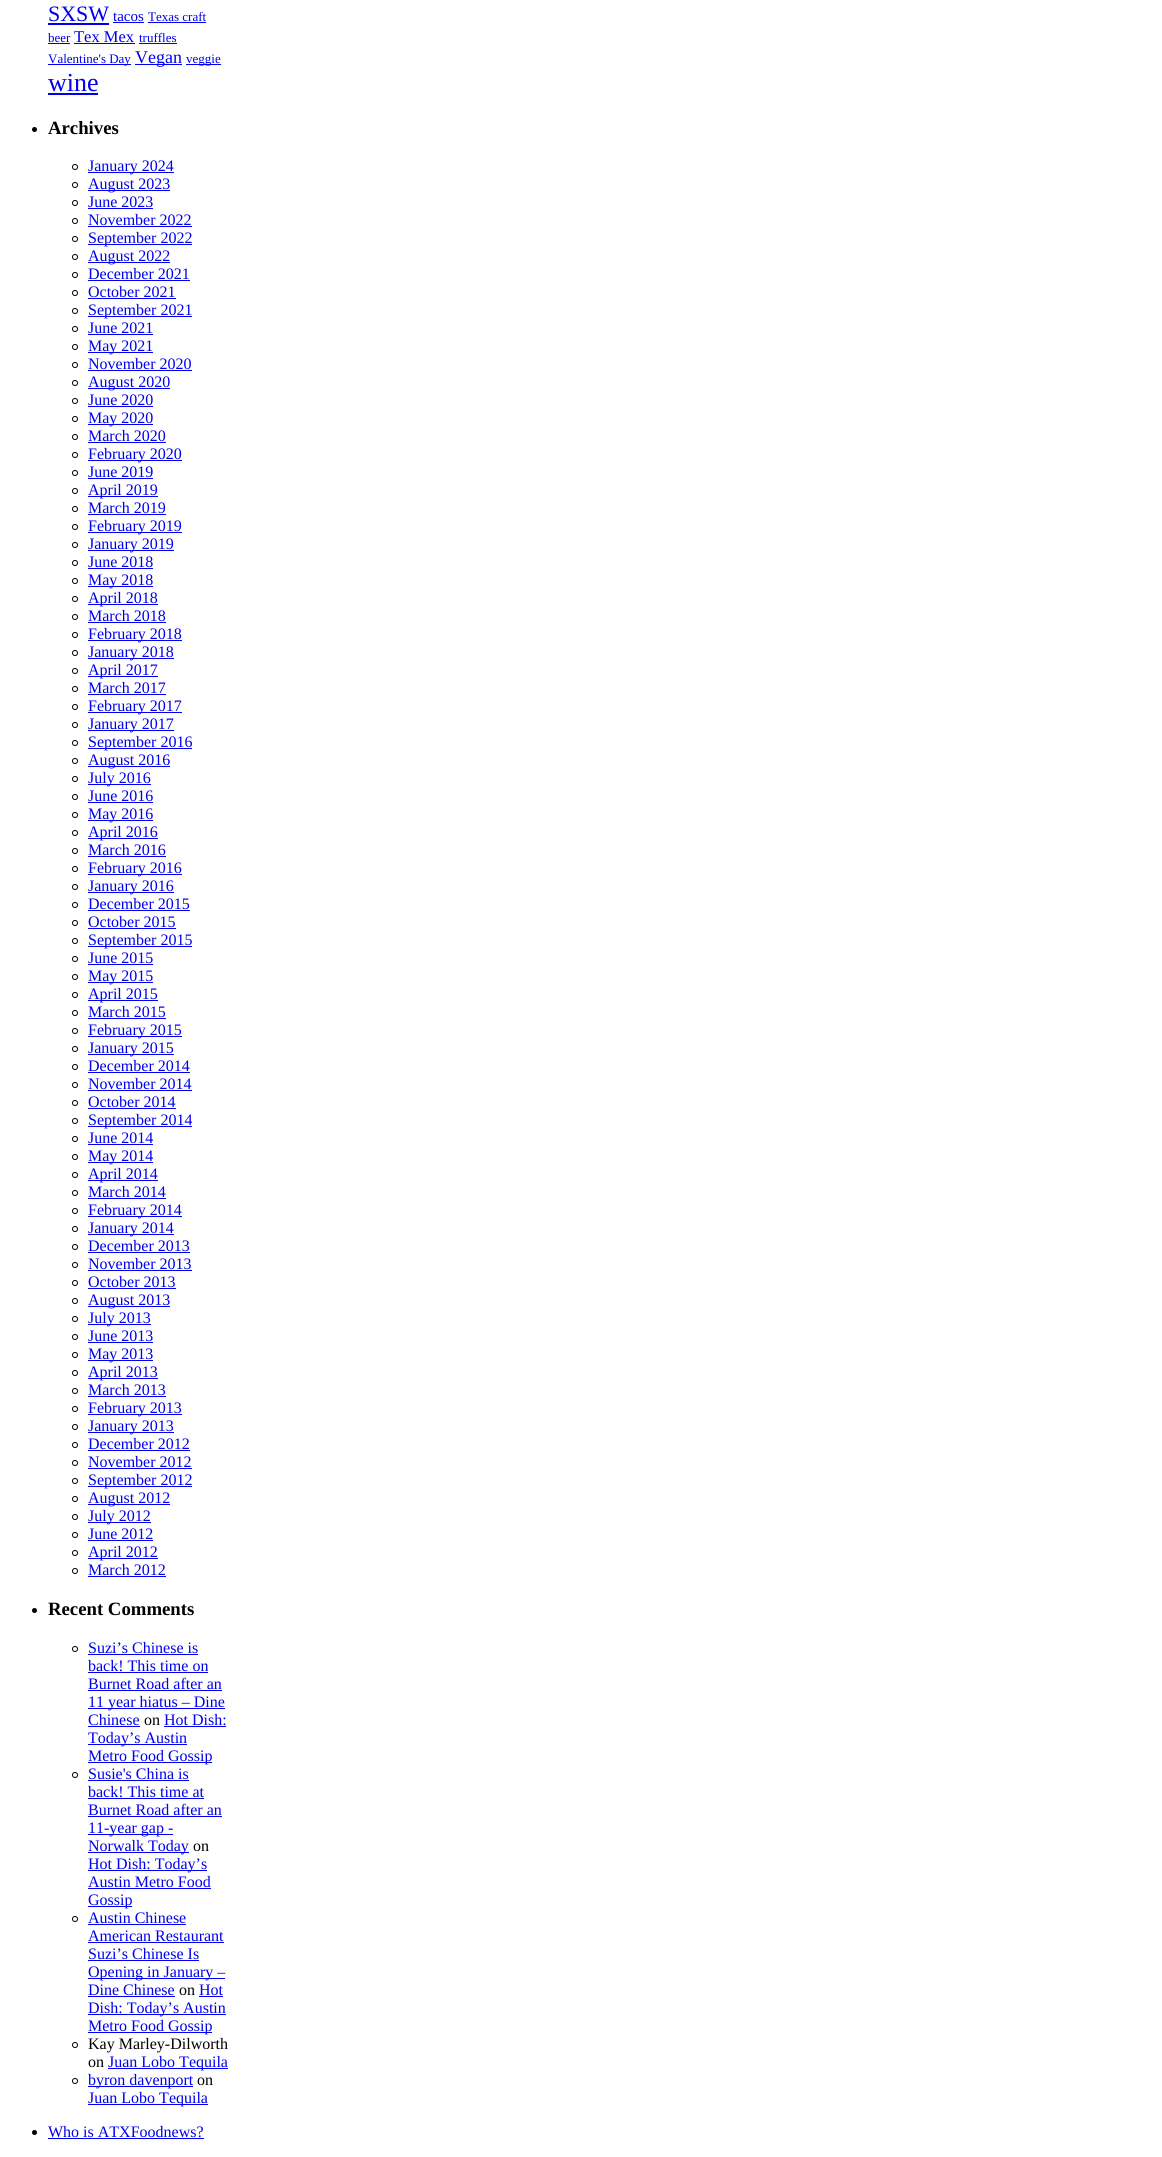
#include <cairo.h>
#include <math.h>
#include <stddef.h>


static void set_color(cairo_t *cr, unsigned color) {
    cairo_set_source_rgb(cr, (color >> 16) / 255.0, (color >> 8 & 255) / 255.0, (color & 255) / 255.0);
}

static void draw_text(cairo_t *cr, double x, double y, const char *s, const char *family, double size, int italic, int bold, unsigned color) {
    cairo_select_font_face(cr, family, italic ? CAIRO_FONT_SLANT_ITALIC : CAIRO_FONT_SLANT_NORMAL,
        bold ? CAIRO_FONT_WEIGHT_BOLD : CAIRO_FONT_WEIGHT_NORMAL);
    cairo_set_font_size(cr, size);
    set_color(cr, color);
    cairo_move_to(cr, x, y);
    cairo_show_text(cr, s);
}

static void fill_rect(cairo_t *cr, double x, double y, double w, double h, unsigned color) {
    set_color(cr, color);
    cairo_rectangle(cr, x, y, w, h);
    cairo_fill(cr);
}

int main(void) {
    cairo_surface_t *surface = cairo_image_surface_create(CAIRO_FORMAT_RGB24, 1162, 2157);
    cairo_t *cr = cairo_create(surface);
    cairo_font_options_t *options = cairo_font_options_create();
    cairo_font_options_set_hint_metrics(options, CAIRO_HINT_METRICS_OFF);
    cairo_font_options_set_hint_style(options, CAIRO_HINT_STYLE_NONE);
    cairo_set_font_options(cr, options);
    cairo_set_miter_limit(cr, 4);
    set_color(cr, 0xFFFFFF);
    cairo_paint(cr);
    draw_text(cr, 48, 21, "SXSW", "Liberation Serif", 22, 0, 0, 0x0000EE);
    fill_rect(cr, 48, 23, 61, 2, 0x0000EE);
    draw_text(cr, 113, 21, "tacos", "Liberation Serif", 15, 0, 0, 0x0000EE);
    fill_rect(cr, 113, 22, 31, 1, 0x0000EE);
    draw_text(cr, 148, 21, "Texas craft", "Liberation Serif", 13, 0, 0, 0x0000EE);
    fill_rect(cr, 148, 22, 58, 1, 0x0000EE);
    draw_text(cr, 48, 42, "beer", "Liberation Serif", 13, 0, 0, 0x0000EE);
    fill_rect(cr, 48, 43, 22, 1, 0x0000EE);
    draw_text(cr, 74, 42, "Tex Mex", "Liberation Serif", 16.5, 0, 0, 0x0000EE);
    fill_rect(cr, 74, 43, 61, 1, 0x0000EE);
    draw_text(cr, 139, 42, "truffles", "Liberation Serif", 13, 0, 0, 0x0000EE);
    fill_rect(cr, 139, 43, 38, 1, 0x0000EE);
    fill_rect(cr, 48, 64, 83, 1, 0x0000EE);
    draw_text(cr, 48, 63, "Valentine's Day", "Liberation Serif", 13, 0, 0, 0x0000EE);
    fill_rect(cr, 135, 64, 47, 1, 0x0000EE);
    draw_text(cr, 135, 63, "Vegan", "Liberation Serif", 18, 0, 0, 0x0000EE);
    fill_rect(cr, 186, 64, 35, 1, 0x0000EE);
    draw_text(cr, 186, 63, "veggie", "Liberation Serif", 13, 0, 0, 0x0000EE);
    draw_text(cr, 48, 91, "wine", "Liberation Serif", 26, 0, 0, 0x0000EE);
    fill_rect(cr, 48, 93, 50, 2, 0x0000EE);
    set_color(cr, 0x000000);
    cairo_new_path(cr);
    cairo_arc(cr, 34.5, 129.5, 2.5, 0, 2 * M_PI);
    cairo_fill(cr);
    draw_text(cr, 48, 134, "Archives", "Liberation Serif", 18.75, 0, 1, 0x000000);
    cairo_new_path(cr);
    cairo_arc(cr, 75, 167, 2.5, 0, 2 * M_PI);
    cairo_set_line_width(cr, 1);
    cairo_stroke(cr);
    fill_rect(cr, 88, 172, 86, 1, 0x0000EE);
    draw_text(cr, 88, 171, "January 2024", "Liberation Serif", 16, 0, 0, 0x0000EE);
    cairo_new_path(cr);
    cairo_arc(cr, 75, 185, 2.5, 0, 2 * M_PI);
    set_color(cr, 0x000000);
    cairo_stroke(cr);
    fill_rect(cr, 88, 190, 82, 1, 0x0000EE);
    draw_text(cr, 88, 189, "August 2023", "Liberation Serif", 16, 0, 0, 0x0000EE);
    cairo_new_path(cr);
    cairo_arc(cr, 75, 203, 2.5, 0, 2 * M_PI);
    set_color(cr, 0x000000);
    cairo_stroke(cr);
    draw_text(cr, 88, 207, "June 2023", "Liberation Serif", 16, 0, 0, 0x0000EE);
    fill_rect(cr, 88, 208, 65, 1, 0x0000EE);
    cairo_new_path(cr);
    cairo_arc(cr, 75, 221, 2.5, 0, 2 * M_PI);
    set_color(cr, 0x000000);
    cairo_stroke(cr);
    draw_text(cr, 88, 225, "November 2022", "Liberation Serif", 16, 0, 0, 0x0000EE);
    fill_rect(cr, 88, 226, 104, 1, 0x0000EE);
    cairo_new_path(cr);
    cairo_arc(cr, 75, 239, 2.5, 0, 2 * M_PI);
    set_color(cr, 0x000000);
    cairo_stroke(cr);
    fill_rect(cr, 88, 244, 104, 1, 0x0000EE);
    draw_text(cr, 88, 243, "September 2022", "Liberation Serif", 16, 0, 0, 0x0000EE);
    cairo_new_path(cr);
    cairo_arc(cr, 75, 257, 2.5, 0, 2 * M_PI);
    set_color(cr, 0x000000);
    cairo_stroke(cr);
    fill_rect(cr, 88, 262, 82, 1, 0x0000EE);
    draw_text(cr, 88, 261, "August 2022", "Liberation Serif", 16, 0, 0, 0x0000EE);
    cairo_new_path(cr);
    cairo_arc(cr, 75, 275, 2.5, 0, 2 * M_PI);
    set_color(cr, 0x000000);
    cairo_stroke(cr);
    draw_text(cr, 88, 279, "December 2021", "Liberation Serif", 16, 0, 0, 0x0000EE);
    fill_rect(cr, 88, 280, 102, 1, 0x0000EE);
    cairo_new_path(cr);
    cairo_arc(cr, 75, 293, 2.5, 0, 2 * M_PI);
    set_color(cr, 0x000000);
    cairo_stroke(cr);
    draw_text(cr, 88, 297, "October 2021", "Liberation Serif", 16, 0, 0, 0x0000EE);
    fill_rect(cr, 88, 298, 88, 1, 0x0000EE);
    cairo_new_path(cr);
    cairo_arc(cr, 75, 311, 2.5, 0, 2 * M_PI);
    set_color(cr, 0x000000);
    cairo_stroke(cr);
    fill_rect(cr, 88, 316, 104, 1, 0x0000EE);
    draw_text(cr, 88, 315, "September 2021", "Liberation Serif", 16, 0, 0, 0x0000EE);
    cairo_new_path(cr);
    cairo_arc(cr, 75, 329, 2.5, 0, 2 * M_PI);
    set_color(cr, 0x000000);
    cairo_stroke(cr);
    draw_text(cr, 88, 333, "June 2021", "Liberation Serif", 16, 0, 0, 0x0000EE);
    fill_rect(cr, 88, 334, 65, 1, 0x0000EE);
    cairo_new_path(cr);
    cairo_arc(cr, 75, 347, 2.5, 0, 2 * M_PI);
    set_color(cr, 0x000000);
    cairo_stroke(cr);
    fill_rect(cr, 88, 352, 65, 1, 0x0000EE);
    draw_text(cr, 88, 351, "May 2021", "Liberation Serif", 16, 0, 0, 0x0000EE);
    cairo_new_path(cr);
    cairo_arc(cr, 75, 365, 2.5, 0, 2 * M_PI);
    set_color(cr, 0x000000);
    cairo_stroke(cr);
    draw_text(cr, 88, 369, "November 2020", "Liberation Serif", 16, 0, 0, 0x0000EE);
    fill_rect(cr, 88, 370, 104, 1, 0x0000EE);
    cairo_new_path(cr);
    cairo_arc(cr, 75, 383, 2.5, 0, 2 * M_PI);
    set_color(cr, 0x000000);
    cairo_stroke(cr);
    fill_rect(cr, 88, 388, 82, 1, 0x0000EE);
    draw_text(cr, 88, 387, "August 2020", "Liberation Serif", 16, 0, 0, 0x0000EE);
    cairo_new_path(cr);
    cairo_arc(cr, 75, 401, 2.5, 0, 2 * M_PI);
    set_color(cr, 0x000000);
    cairo_stroke(cr);
    draw_text(cr, 88, 405, "June 2020", "Liberation Serif", 16, 0, 0, 0x0000EE);
    fill_rect(cr, 88, 406, 65, 1, 0x0000EE);
    cairo_new_path(cr);
    cairo_arc(cr, 75, 419, 2.5, 0, 2 * M_PI);
    set_color(cr, 0x000000);
    cairo_stroke(cr);
    fill_rect(cr, 88, 424, 65, 1, 0x0000EE);
    draw_text(cr, 88, 423, "May 2020", "Liberation Serif", 16, 0, 0, 0x0000EE);
    cairo_new_path(cr);
    cairo_arc(cr, 75, 437, 2.5, 0, 2 * M_PI);
    set_color(cr, 0x000000);
    cairo_stroke(cr);
    draw_text(cr, 88, 441, "March 2020", "Liberation Serif", 16, 0, 0, 0x0000EE);
    fill_rect(cr, 88, 442, 78, 1, 0x0000EE);
    cairo_new_path(cr);
    cairo_arc(cr, 75, 455, 2.5, 0, 2 * M_PI);
    set_color(cr, 0x000000);
    cairo_stroke(cr);
    fill_rect(cr, 88, 460, 94, 1, 0x0000EE);
    draw_text(cr, 88, 459, "February 2020", "Liberation Serif", 16, 0, 0, 0x0000EE);
    cairo_new_path(cr);
    cairo_arc(cr, 75, 473, 2.5, 0, 2 * M_PI);
    set_color(cr, 0x000000);
    cairo_stroke(cr);
    draw_text(cr, 88, 477, "June 2019", "Liberation Serif", 16, 0, 0, 0x0000EE);
    fill_rect(cr, 88, 478, 65, 1, 0x0000EE);
    cairo_new_path(cr);
    cairo_arc(cr, 75, 491, 2.5, 0, 2 * M_PI);
    set_color(cr, 0x000000);
    cairo_stroke(cr);
    fill_rect(cr, 88, 496, 70, 1, 0x0000EE);
    draw_text(cr, 88, 495, "April 2019", "Liberation Serif", 16, 0, 0, 0x0000EE);
    cairo_new_path(cr);
    cairo_arc(cr, 75, 509, 2.5, 0, 2 * M_PI);
    set_color(cr, 0x000000);
    cairo_stroke(cr);
    draw_text(cr, 88, 513, "March 2019", "Liberation Serif", 16, 0, 0, 0x0000EE);
    fill_rect(cr, 88, 514, 78, 1, 0x0000EE);
    cairo_new_path(cr);
    cairo_arc(cr, 75, 527, 2.5, 0, 2 * M_PI);
    set_color(cr, 0x000000);
    cairo_stroke(cr);
    fill_rect(cr, 88, 532, 94, 1, 0x0000EE);
    draw_text(cr, 88, 531, "February 2019", "Liberation Serif", 16, 0, 0, 0x0000EE);
    cairo_new_path(cr);
    cairo_arc(cr, 75, 545, 2.5, 0, 2 * M_PI);
    set_color(cr, 0x000000);
    cairo_stroke(cr);
    fill_rect(cr, 88, 550, 86, 1, 0x0000EE);
    draw_text(cr, 88, 549, "January 2019", "Liberation Serif", 16, 0, 0, 0x0000EE);
    cairo_new_path(cr);
    cairo_arc(cr, 75, 563, 2.5, 0, 2 * M_PI);
    set_color(cr, 0x000000);
    cairo_stroke(cr);
    draw_text(cr, 88, 567, "June 2018", "Liberation Serif", 16, 0, 0, 0x0000EE);
    fill_rect(cr, 88, 568, 65, 1, 0x0000EE);
    cairo_new_path(cr);
    cairo_arc(cr, 75, 581, 2.5, 0, 2 * M_PI);
    set_color(cr, 0x000000);
    cairo_stroke(cr);
    fill_rect(cr, 88, 586, 65, 1, 0x0000EE);
    draw_text(cr, 88, 585, "May 2018", "Liberation Serif", 16, 0, 0, 0x0000EE);
    cairo_new_path(cr);
    cairo_arc(cr, 75, 599, 2.5, 0, 2 * M_PI);
    set_color(cr, 0x000000);
    cairo_stroke(cr);
    fill_rect(cr, 88, 604, 70, 1, 0x0000EE);
    draw_text(cr, 88, 603, "April 2018", "Liberation Serif", 16, 0, 0, 0x0000EE);
    cairo_new_path(cr);
    cairo_arc(cr, 75, 617, 2.5, 0, 2 * M_PI);
    set_color(cr, 0x000000);
    cairo_stroke(cr);
    draw_text(cr, 88, 621, "March 2018", "Liberation Serif", 16, 0, 0, 0x0000EE);
    fill_rect(cr, 88, 622, 78, 1, 0x0000EE);
    cairo_new_path(cr);
    cairo_arc(cr, 75, 635, 2.5, 0, 2 * M_PI);
    set_color(cr, 0x000000);
    cairo_stroke(cr);
    fill_rect(cr, 88, 640, 94, 1, 0x0000EE);
    draw_text(cr, 88, 639, "February 2018", "Liberation Serif", 16, 0, 0, 0x0000EE);
    cairo_new_path(cr);
    cairo_arc(cr, 75, 653, 2.5, 0, 2 * M_PI);
    set_color(cr, 0x000000);
    cairo_stroke(cr);
    fill_rect(cr, 88, 658, 86, 1, 0x0000EE);
    draw_text(cr, 88, 657, "January 2018", "Liberation Serif", 16, 0, 0, 0x0000EE);
    cairo_new_path(cr);
    cairo_arc(cr, 75, 671, 2.5, 0, 2 * M_PI);
    set_color(cr, 0x000000);
    cairo_stroke(cr);
    fill_rect(cr, 88, 676, 70, 1, 0x0000EE);
    draw_text(cr, 88, 675, "April 2017", "Liberation Serif", 16, 0, 0, 0x0000EE);
    cairo_new_path(cr);
    cairo_arc(cr, 75, 689, 2.5, 0, 2 * M_PI);
    set_color(cr, 0x000000);
    cairo_stroke(cr);
    draw_text(cr, 88, 693, "March 2017", "Liberation Serif", 16, 0, 0, 0x0000EE);
    fill_rect(cr, 88, 694, 78, 1, 0x0000EE);
    cairo_new_path(cr);
    cairo_arc(cr, 75, 707, 2.5, 0, 2 * M_PI);
    set_color(cr, 0x000000);
    cairo_stroke(cr);
    fill_rect(cr, 88, 712, 94, 1, 0x0000EE);
    draw_text(cr, 88, 711, "February 2017", "Liberation Serif", 16, 0, 0, 0x0000EE);
    cairo_new_path(cr);
    cairo_arc(cr, 75, 725, 2.5, 0, 2 * M_PI);
    set_color(cr, 0x000000);
    cairo_stroke(cr);
    fill_rect(cr, 88, 730, 86, 1, 0x0000EE);
    draw_text(cr, 88, 729, "January 2017", "Liberation Serif", 16, 0, 0, 0x0000EE);
    cairo_new_path(cr);
    cairo_arc(cr, 75, 743, 2.5, 0, 2 * M_PI);
    set_color(cr, 0x000000);
    cairo_stroke(cr);
    fill_rect(cr, 88, 748, 104, 1, 0x0000EE);
    draw_text(cr, 88, 747, "September 2016", "Liberation Serif", 16, 0, 0, 0x0000EE);
    cairo_new_path(cr);
    cairo_arc(cr, 75, 761, 2.5, 0, 2 * M_PI);
    set_color(cr, 0x000000);
    cairo_stroke(cr);
    fill_rect(cr, 88, 766, 82, 1, 0x0000EE);
    draw_text(cr, 88, 765, "August 2016", "Liberation Serif", 16, 0, 0, 0x0000EE);
    cairo_new_path(cr);
    cairo_arc(cr, 75, 779, 2.5, 0, 2 * M_PI);
    set_color(cr, 0x000000);
    cairo_stroke(cr);
    fill_rect(cr, 88, 784, 63, 1, 0x0000EE);
    draw_text(cr, 88, 783, "July 2016", "Liberation Serif", 16, 0, 0, 0x0000EE);
    cairo_new_path(cr);
    cairo_arc(cr, 75, 797, 2.5, 0, 2 * M_PI);
    set_color(cr, 0x000000);
    cairo_stroke(cr);
    draw_text(cr, 88, 801, "June 2016", "Liberation Serif", 16, 0, 0, 0x0000EE);
    fill_rect(cr, 88, 802, 65, 1, 0x0000EE);
    cairo_new_path(cr);
    cairo_arc(cr, 75, 815, 2.5, 0, 2 * M_PI);
    set_color(cr, 0x000000);
    cairo_stroke(cr);
    fill_rect(cr, 88, 820, 65, 1, 0x0000EE);
    draw_text(cr, 88, 819, "May 2016", "Liberation Serif", 16, 0, 0, 0x0000EE);
    cairo_new_path(cr);
    cairo_arc(cr, 75, 833, 2.5, 0, 2 * M_PI);
    set_color(cr, 0x000000);
    cairo_stroke(cr);
    fill_rect(cr, 88, 838, 70, 1, 0x0000EE);
    draw_text(cr, 88, 837, "April 2016", "Liberation Serif", 16, 0, 0, 0x0000EE);
    cairo_new_path(cr);
    cairo_arc(cr, 75, 851, 2.5, 0, 2 * M_PI);
    set_color(cr, 0x000000);
    cairo_stroke(cr);
    draw_text(cr, 88, 855, "March 2016", "Liberation Serif", 16, 0, 0, 0x0000EE);
    fill_rect(cr, 88, 856, 78, 1, 0x0000EE);
    cairo_new_path(cr);
    cairo_arc(cr, 75, 869, 2.5, 0, 2 * M_PI);
    set_color(cr, 0x000000);
    cairo_stroke(cr);
    fill_rect(cr, 88, 874, 94, 1, 0x0000EE);
    draw_text(cr, 88, 873, "February 2016", "Liberation Serif", 16, 0, 0, 0x0000EE);
    cairo_new_path(cr);
    cairo_arc(cr, 75, 887, 2.5, 0, 2 * M_PI);
    set_color(cr, 0x000000);
    cairo_stroke(cr);
    fill_rect(cr, 88, 892, 86, 1, 0x0000EE);
    draw_text(cr, 88, 891, "January 2016", "Liberation Serif", 16, 0, 0, 0x0000EE);
    cairo_new_path(cr);
    cairo_arc(cr, 75, 905, 2.5, 0, 2 * M_PI);
    set_color(cr, 0x000000);
    cairo_stroke(cr);
    draw_text(cr, 88, 909, "December 2015", "Liberation Serif", 16, 0, 0, 0x0000EE);
    fill_rect(cr, 88, 910, 102, 1, 0x0000EE);
    cairo_new_path(cr);
    cairo_arc(cr, 75, 923, 2.5, 0, 2 * M_PI);
    set_color(cr, 0x000000);
    cairo_stroke(cr);
    draw_text(cr, 88, 927, "October 2015", "Liberation Serif", 16, 0, 0, 0x0000EE);
    fill_rect(cr, 88, 928, 88, 1, 0x0000EE);
    cairo_new_path(cr);
    cairo_arc(cr, 75, 941, 2.5, 0, 2 * M_PI);
    set_color(cr, 0x000000);
    cairo_stroke(cr);
    fill_rect(cr, 88, 946, 104, 1, 0x0000EE);
    draw_text(cr, 88, 945, "September 2015", "Liberation Serif", 16, 0, 0, 0x0000EE);
    cairo_new_path(cr);
    cairo_arc(cr, 75, 959, 2.5, 0, 2 * M_PI);
    set_color(cr, 0x000000);
    cairo_stroke(cr);
    draw_text(cr, 88, 963, "June 2015", "Liberation Serif", 16, 0, 0, 0x0000EE);
    fill_rect(cr, 88, 964, 65, 1, 0x0000EE);
    cairo_new_path(cr);
    cairo_arc(cr, 75, 977, 2.5, 0, 2 * M_PI);
    set_color(cr, 0x000000);
    cairo_stroke(cr);
    fill_rect(cr, 88, 982, 65, 1, 0x0000EE);
    draw_text(cr, 88, 981, "May 2015", "Liberation Serif", 16, 0, 0, 0x0000EE);
    cairo_new_path(cr);
    cairo_arc(cr, 75, 995, 2.5, 0, 2 * M_PI);
    set_color(cr, 0x000000);
    cairo_stroke(cr);
    fill_rect(cr, 88, 1000, 70, 1, 0x0000EE);
    draw_text(cr, 88, 999, "April 2015", "Liberation Serif", 16, 0, 0, 0x0000EE);
    cairo_new_path(cr);
    cairo_arc(cr, 75, 1013, 2.5, 0, 2 * M_PI);
    set_color(cr, 0x000000);
    cairo_stroke(cr);
    draw_text(cr, 88, 1017, "March 2015", "Liberation Serif", 16, 0, 0, 0x0000EE);
    fill_rect(cr, 88, 1018, 78, 1, 0x0000EE);
    cairo_new_path(cr);
    cairo_arc(cr, 75, 1031, 2.5, 0, 2 * M_PI);
    set_color(cr, 0x000000);
    cairo_stroke(cr);
    fill_rect(cr, 88, 1036, 94, 1, 0x0000EE);
    draw_text(cr, 88, 1035, "February 2015", "Liberation Serif", 16, 0, 0, 0x0000EE);
    cairo_new_path(cr);
    cairo_arc(cr, 75, 1049, 2.5, 0, 2 * M_PI);
    set_color(cr, 0x000000);
    cairo_stroke(cr);
    fill_rect(cr, 88, 1054, 86, 1, 0x0000EE);
    draw_text(cr, 88, 1053, "January 2015", "Liberation Serif", 16, 0, 0, 0x0000EE);
    cairo_new_path(cr);
    cairo_arc(cr, 75, 1067, 2.5, 0, 2 * M_PI);
    set_color(cr, 0x000000);
    cairo_stroke(cr);
    draw_text(cr, 88, 1071, "December 2014", "Liberation Serif", 16, 0, 0, 0x0000EE);
    fill_rect(cr, 88, 1072, 102, 1, 0x0000EE);
    cairo_new_path(cr);
    cairo_arc(cr, 75, 1085, 2.5, 0, 2 * M_PI);
    set_color(cr, 0x000000);
    cairo_stroke(cr);
    draw_text(cr, 88, 1089, "November 2014", "Liberation Serif", 16, 0, 0, 0x0000EE);
    fill_rect(cr, 88, 1090, 104, 1, 0x0000EE);
    cairo_new_path(cr);
    cairo_arc(cr, 75, 1103, 2.5, 0, 2 * M_PI);
    set_color(cr, 0x000000);
    cairo_stroke(cr);
    draw_text(cr, 88, 1107, "October 2014", "Liberation Serif", 16, 0, 0, 0x0000EE);
    fill_rect(cr, 88, 1108, 88, 1, 0x0000EE);
    cairo_new_path(cr);
    cairo_arc(cr, 75, 1121, 2.5, 0, 2 * M_PI);
    set_color(cr, 0x000000);
    cairo_stroke(cr);
    fill_rect(cr, 88, 1126, 104, 1, 0x0000EE);
    draw_text(cr, 88, 1125, "September 2014", "Liberation Serif", 16, 0, 0, 0x0000EE);
    cairo_new_path(cr);
    cairo_arc(cr, 75, 1139, 2.5, 0, 2 * M_PI);
    set_color(cr, 0x000000);
    cairo_stroke(cr);
    draw_text(cr, 88, 1143, "June 2014", "Liberation Serif", 16, 0, 0, 0x0000EE);
    fill_rect(cr, 88, 1144, 65, 1, 0x0000EE);
    cairo_new_path(cr);
    cairo_arc(cr, 75, 1157, 2.5, 0, 2 * M_PI);
    set_color(cr, 0x000000);
    cairo_stroke(cr);
    fill_rect(cr, 88, 1162, 65, 1, 0x0000EE);
    draw_text(cr, 88, 1161, "May 2014", "Liberation Serif", 16, 0, 0, 0x0000EE);
    cairo_new_path(cr);
    cairo_arc(cr, 75, 1175, 2.5, 0, 2 * M_PI);
    set_color(cr, 0x000000);
    cairo_stroke(cr);
    fill_rect(cr, 88, 1180, 70, 1, 0x0000EE);
    draw_text(cr, 88, 1179, "April 2014", "Liberation Serif", 16, 0, 0, 0x0000EE);
    cairo_new_path(cr);
    cairo_arc(cr, 75, 1193, 2.5, 0, 2 * M_PI);
    set_color(cr, 0x000000);
    cairo_stroke(cr);
    draw_text(cr, 88, 1197, "March 2014", "Liberation Serif", 16, 0, 0, 0x0000EE);
    fill_rect(cr, 88, 1198, 78, 1, 0x0000EE);
    cairo_new_path(cr);
    cairo_arc(cr, 75, 1211, 2.5, 0, 2 * M_PI);
    set_color(cr, 0x000000);
    cairo_stroke(cr);
    fill_rect(cr, 88, 1216, 94, 1, 0x0000EE);
    draw_text(cr, 88, 1215, "February 2014", "Liberation Serif", 16, 0, 0, 0x0000EE);
    cairo_new_path(cr);
    cairo_arc(cr, 75, 1229, 2.5, 0, 2 * M_PI);
    set_color(cr, 0x000000);
    cairo_stroke(cr);
    fill_rect(cr, 88, 1234, 86, 1, 0x0000EE);
    draw_text(cr, 88, 1233, "January 2014", "Liberation Serif", 16, 0, 0, 0x0000EE);
    cairo_new_path(cr);
    cairo_arc(cr, 75, 1247, 2.5, 0, 2 * M_PI);
    set_color(cr, 0x000000);
    cairo_stroke(cr);
    draw_text(cr, 88, 1251, "December 2013", "Liberation Serif", 16, 0, 0, 0x0000EE);
    fill_rect(cr, 88, 1252, 102, 1, 0x0000EE);
    cairo_new_path(cr);
    cairo_arc(cr, 75, 1265, 2.5, 0, 2 * M_PI);
    set_color(cr, 0x000000);
    cairo_stroke(cr);
    draw_text(cr, 88, 1269, "November 2013", "Liberation Serif", 16, 0, 0, 0x0000EE);
    fill_rect(cr, 88, 1270, 104, 1, 0x0000EE);
    cairo_new_path(cr);
    cairo_arc(cr, 75, 1283, 2.5, 0, 2 * M_PI);
    set_color(cr, 0x000000);
    cairo_stroke(cr);
    draw_text(cr, 88, 1287, "October 2013", "Liberation Serif", 16, 0, 0, 0x0000EE);
    fill_rect(cr, 88, 1288, 88, 1, 0x0000EE);
    cairo_new_path(cr);
    cairo_arc(cr, 75, 1301, 2.5, 0, 2 * M_PI);
    set_color(cr, 0x000000);
    cairo_stroke(cr);
    fill_rect(cr, 88, 1306, 82, 1, 0x0000EE);
    draw_text(cr, 88, 1305, "August 2013", "Liberation Serif", 16, 0, 0, 0x0000EE);
    cairo_new_path(cr);
    cairo_arc(cr, 75, 1319, 2.5, 0, 2 * M_PI);
    set_color(cr, 0x000000);
    cairo_stroke(cr);
    fill_rect(cr, 88, 1324, 63, 1, 0x0000EE);
    draw_text(cr, 88, 1323, "July 2013", "Liberation Serif", 16, 0, 0, 0x0000EE);
    cairo_new_path(cr);
    cairo_arc(cr, 75, 1337, 2.5, 0, 2 * M_PI);
    set_color(cr, 0x000000);
    cairo_stroke(cr);
    draw_text(cr, 88, 1341, "June 2013", "Liberation Serif", 16, 0, 0, 0x0000EE);
    fill_rect(cr, 88, 1342, 65, 1, 0x0000EE);
    cairo_new_path(cr);
    cairo_arc(cr, 75, 1355, 2.5, 0, 2 * M_PI);
    set_color(cr, 0x000000);
    cairo_stroke(cr);
    fill_rect(cr, 88, 1360, 65, 1, 0x0000EE);
    draw_text(cr, 88, 1359, "May 2013", "Liberation Serif", 16, 0, 0, 0x0000EE);
    cairo_new_path(cr);
    cairo_arc(cr, 75, 1373, 2.5, 0, 2 * M_PI);
    set_color(cr, 0x000000);
    cairo_stroke(cr);
    fill_rect(cr, 88, 1378, 70, 1, 0x0000EE);
    draw_text(cr, 88, 1377, "April 2013", "Liberation Serif", 16, 0, 0, 0x0000EE);
    cairo_new_path(cr);
    cairo_arc(cr, 75, 1391, 2.5, 0, 2 * M_PI);
    set_color(cr, 0x000000);
    cairo_stroke(cr);
    draw_text(cr, 88, 1395, "March 2013", "Liberation Serif", 16, 0, 0, 0x0000EE);
    fill_rect(cr, 88, 1396, 78, 1, 0x0000EE);
    cairo_new_path(cr);
    cairo_arc(cr, 75, 1409, 2.5, 0, 2 * M_PI);
    set_color(cr, 0x000000);
    cairo_stroke(cr);
    fill_rect(cr, 88, 1414, 94, 1, 0x0000EE);
    draw_text(cr, 88, 1413, "February 2013", "Liberation Serif", 16, 0, 0, 0x0000EE);
    cairo_new_path(cr);
    cairo_arc(cr, 75, 1427, 2.5, 0, 2 * M_PI);
    set_color(cr, 0x000000);
    cairo_stroke(cr);
    fill_rect(cr, 88, 1432, 86, 1, 0x0000EE);
    draw_text(cr, 88, 1431, "January 2013", "Liberation Serif", 16, 0, 0, 0x0000EE);
    cairo_new_path(cr);
    cairo_arc(cr, 75, 1445, 2.5, 0, 2 * M_PI);
    set_color(cr, 0x000000);
    cairo_stroke(cr);
    draw_text(cr, 88, 1449, "December 2012", "Liberation Serif", 16, 0, 0, 0x0000EE);
    fill_rect(cr, 88, 1450, 102, 1, 0x0000EE);
    cairo_new_path(cr);
    cairo_arc(cr, 75, 1463, 2.5, 0, 2 * M_PI);
    set_color(cr, 0x000000);
    cairo_stroke(cr);
    draw_text(cr, 88, 1467, "November 2012", "Liberation Serif", 16, 0, 0, 0x0000EE);
    fill_rect(cr, 88, 1468, 104, 1, 0x0000EE);
    cairo_new_path(cr);
    cairo_arc(cr, 75, 1481, 2.5, 0, 2 * M_PI);
    set_color(cr, 0x000000);
    cairo_stroke(cr);
    fill_rect(cr, 88, 1486, 104, 1, 0x0000EE);
    draw_text(cr, 88, 1485, "September 2012", "Liberation Serif", 16, 0, 0, 0x0000EE);
    cairo_new_path(cr);
    cairo_arc(cr, 75, 1499, 2.5, 0, 2 * M_PI);
    set_color(cr, 0x000000);
    cairo_stroke(cr);
    fill_rect(cr, 88, 1504, 82, 1, 0x0000EE);
    draw_text(cr, 88, 1503, "August 2012", "Liberation Serif", 16, 0, 0, 0x0000EE);
    cairo_new_path(cr);
    cairo_arc(cr, 75, 1517, 2.5, 0, 2 * M_PI);
    set_color(cr, 0x000000);
    cairo_stroke(cr);
    fill_rect(cr, 88, 1522, 63, 1, 0x0000EE);
    draw_text(cr, 88, 1521, "July 2012", "Liberation Serif", 16, 0, 0, 0x0000EE);
    cairo_new_path(cr);
    cairo_arc(cr, 75, 1535, 2.5, 0, 2 * M_PI);
    set_color(cr, 0x000000);
    cairo_stroke(cr);
    draw_text(cr, 88, 1539, "June 2012", "Liberation Serif", 16, 0, 0, 0x0000EE);
    fill_rect(cr, 88, 1540, 65, 1, 0x0000EE);
    cairo_new_path(cr);
    cairo_arc(cr, 75, 1553, 2.5, 0, 2 * M_PI);
    set_color(cr, 0x000000);
    cairo_stroke(cr);
    fill_rect(cr, 88, 1558, 70, 1, 0x0000EE);
    draw_text(cr, 88, 1557, "April 2012", "Liberation Serif", 16, 0, 0, 0x0000EE);
    cairo_new_path(cr);
    cairo_arc(cr, 75, 1571, 2.5, 0, 2 * M_PI);
    set_color(cr, 0x000000);
    cairo_stroke(cr);
    draw_text(cr, 88, 1575, "March 2012", "Liberation Serif", 16, 0, 0, 0x0000EE);
    fill_rect(cr, 88, 1576, 78, 1, 0x0000EE);
    set_color(cr, 0x000000);
    cairo_new_path(cr);
    cairo_arc(cr, 34.5, 1610.5, 2.5, 0, 2 * M_PI);
    cairo_fill(cr);
    draw_text(cr, 48, 1615, "Recent Comments", "Liberation Serif", 18.75, 0, 1, 0x000000);
    cairo_new_path(cr);
    cairo_arc(cr, 75, 1649, 2.5, 0, 2 * M_PI);
    cairo_stroke(cr);
    draw_text(cr, 88, 1653, "Suzi’s Chinese is", "Liberation Serif", 16, 0, 0, 0x0000EE);
    fill_rect(cr, 88, 1654, 110, 1, 0x0000EE);
    draw_text(cr, 88, 1671, "back! This time on", "Liberation Serif", 16, 0, 0, 0x0000EE);
    fill_rect(cr, 88, 1672, 120, 1, 0x0000EE);
    draw_text(cr, 88, 1689, "Burnet Road after an", "Liberation Serif", 16, 0, 0, 0x0000EE);
    fill_rect(cr, 88, 1690, 134, 1, 0x0000EE);
    fill_rect(cr, 88, 1708, 137, 1, 0x0000EE);
    draw_text(cr, 88, 1707, "11 year hiatus – Dine", "Liberation Serif", 16, 0, 0, 0x0000EE);
    draw_text(cr, 88, 1725, "Chinese", "Liberation Serif", 16, 0, 0, 0x0000EE);
    fill_rect(cr, 88, 1726, 52, 1, 0x0000EE);
    draw_text(cr, 144, 1725, "on", "Liberation Serif", 16, 0, 0, 0x000000);
    draw_text(cr, 164, 1725, "Hot Dish:", "Liberation Serif", 16, 0, 0, 0x0000EE);
    fill_rect(cr, 164, 1726, 62, 1, 0x0000EE);
    fill_rect(cr, 88, 1744, 99, 1, 0x0000EE);
    draw_text(cr, 88, 1743, "Today’s Austin", "Liberation Serif", 16, 0, 0, 0x0000EE);
    fill_rect(cr, 88, 1762, 124, 1, 0x0000EE);
    draw_text(cr, 88, 1761, "Metro Food Gossip", "Liberation Serif", 16, 0, 0, 0x0000EE);
    cairo_new_path(cr);
    cairo_arc(cr, 75, 1775, 2.5, 0, 2 * M_PI);
    set_color(cr, 0x000000);
    cairo_stroke(cr);
    draw_text(cr, 88, 1779, "Susie's China is", "Liberation Serif", 16, 0, 0, 0x0000EE);
    fill_rect(cr, 88, 1780, 101, 1, 0x0000EE);
    draw_text(cr, 88, 1797, "back! This time at", "Liberation Serif", 16, 0, 0, 0x0000EE);
    fill_rect(cr, 88, 1798, 116, 1, 0x0000EE);
    draw_text(cr, 88, 1815, "Burnet Road after an", "Liberation Serif", 16, 0, 0, 0x0000EE);
    fill_rect(cr, 88, 1816, 134, 1, 0x0000EE);
    fill_rect(cr, 88, 1834, 85, 1, 0x0000EE);
    draw_text(cr, 88, 1833, "11-year gap -", "Liberation Serif", 16, 0, 0, 0x0000EE);
    fill_rect(cr, 88, 1852, 101, 1, 0x0000EE);
    draw_text(cr, 88, 1851, "Norwalk Today", "Liberation Serif", 16, 0, 0, 0x0000EE);
    draw_text(cr, 193, 1851, "on", "Liberation Serif", 16, 0, 0, 0x000000);
    fill_rect(cr, 88, 1870, 119, 1, 0x0000EE);
    draw_text(cr, 88, 1869, "Hot Dish: Today’s", "Liberation Serif", 16, 0, 0, 0x0000EE);
    draw_text(cr, 88, 1887, "Austin Metro Food", "Liberation Serif", 16, 0, 0, 0x0000EE);
    fill_rect(cr, 88, 1888, 123, 1, 0x0000EE);
    fill_rect(cr, 88, 1906, 44, 1, 0x0000EE);
    draw_text(cr, 88, 1905, "Gossip", "Liberation Serif", 16, 0, 0, 0x0000EE);
    cairo_new_path(cr);
    cairo_arc(cr, 75, 1919, 2.5, 0, 2 * M_PI);
    set_color(cr, 0x000000);
    cairo_stroke(cr);
    draw_text(cr, 88, 1923, "Austin Chinese", "Liberation Serif", 16, 0, 0, 0x0000EE);
    fill_rect(cr, 88, 1924, 98, 1, 0x0000EE);
    draw_text(cr, 88, 1941, "American Restaurant", "Liberation Serif", 16, 0, 0, 0x0000EE);
    fill_rect(cr, 88, 1942, 136, 1, 0x0000EE);
    draw_text(cr, 88, 1959, "Suzi’s Chinese Is", "Liberation Serif", 16, 0, 0, 0x0000EE);
    fill_rect(cr, 88, 1960, 111, 1, 0x0000EE);
    fill_rect(cr, 88, 1978, 137, 1, 0x0000EE);
    draw_text(cr, 88, 1977, "Opening in January –", "Liberation Serif", 16, 0, 0, 0x0000EE);
    draw_text(cr, 88, 1995, "Dine Chinese", "Liberation Serif", 16, 0, 0, 0x0000EE);
    fill_rect(cr, 88, 1996, 87, 1, 0x0000EE);
    draw_text(cr, 179, 1995, "on", "Liberation Serif", 16, 0, 0, 0x000000);
    draw_text(cr, 199, 1995, "Hot", "Liberation Serif", 16, 0, 0, 0x0000EE);
    fill_rect(cr, 199, 1996, 24, 1, 0x0000EE);
    fill_rect(cr, 88, 2014, 138, 1, 0x0000EE);
    draw_text(cr, 88, 2013, "Dish: Today’s Austin", "Liberation Serif", 16, 0, 0, 0x0000EE);
    fill_rect(cr, 88, 2032, 124, 1, 0x0000EE);
    draw_text(cr, 88, 2031, "Metro Food Gossip", "Liberation Serif", 16, 0, 0, 0x0000EE);
    cairo_new_path(cr);
    cairo_arc(cr, 75, 2045, 2.5, 0, 2 * M_PI);
    set_color(cr, 0x000000);
    cairo_stroke(cr);
    draw_text(cr, 88, 2049, "Kay Marley-Dilworth", "Liberation Serif", 16, 0, 0, 0x000000);
    draw_text(cr, 88, 2067, "on", "Liberation Serif", 16, 0, 0, 0x000000);
    fill_rect(cr, 108, 2068, 120, 1, 0x0000EE);
    draw_text(cr, 108, 2067, "Juan Lobo Tequila", "Liberation Serif", 16, 0, 0, 0x0000EE);
    cairo_new_path(cr);
    cairo_arc(cr, 75, 2081, 2.5, 0, 2 * M_PI);
    set_color(cr, 0x000000);
    cairo_stroke(cr);
    fill_rect(cr, 88, 2086, 105, 1, 0x0000EE);
    draw_text(cr, 88, 2085, "byron davenport", "Liberation Serif", 16, 0, 0, 0x0000EE);
    draw_text(cr, 197, 2085, "on", "Liberation Serif", 16, 0, 0, 0x000000);
    fill_rect(cr, 88, 2104, 120, 1, 0x0000EE);
    draw_text(cr, 88, 2103, "Juan Lobo Tequila", "Liberation Serif", 16, 0, 0, 0x0000EE);
    set_color(cr, 0x000000);
    cairo_new_path(cr);
    cairo_arc(cr, 34.5, 2132.5, 2.5, 0, 2 * M_PI);
    cairo_fill(cr);
    draw_text(cr, 48, 2137, "Who is ATXFoodnews?", "Liberation Serif", 16, 0, 0, 0x0000EE);
    fill_rect(cr, 48, 2138, 156, 1, 0x0000EE);
    cairo_surface_write_to_png(surface, "output.png");
    cairo_font_options_destroy(options);
    cairo_destroy(cr);
    cairo_surface_destroy(surface);
    return 0;
}
